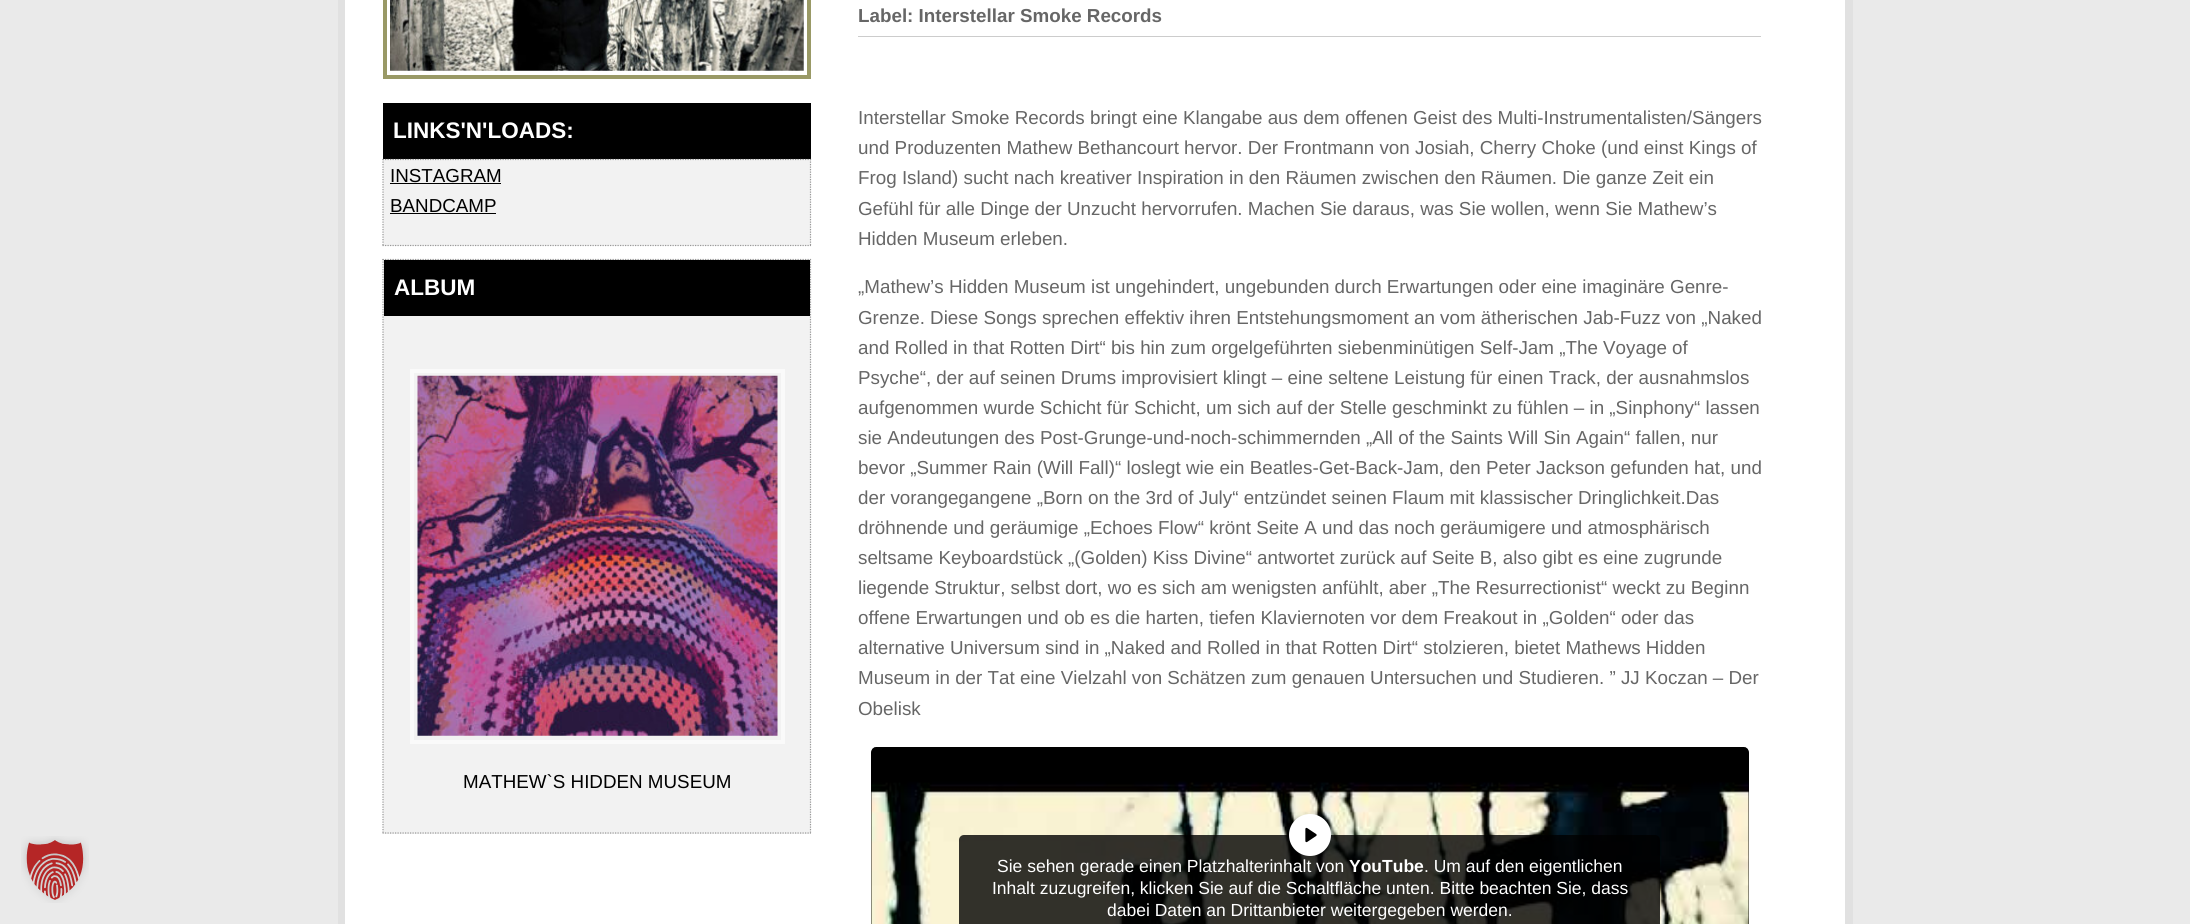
#include <cairo.h>
#include <math.h>
#include <stddef.h>


static void set_color(cairo_t *cr, unsigned color) {
    cairo_set_source_rgb(cr, (color >> 16) / 255.0, (color >> 8 & 255) / 255.0, (color & 255) / 255.0);
}

static void draw_text(cairo_t *cr, double x, double y, const char *s, const char *family, double size, int italic, int bold, unsigned color) {
    cairo_select_font_face(cr, family, italic ? CAIRO_FONT_SLANT_ITALIC : CAIRO_FONT_SLANT_NORMAL,
        bold ? CAIRO_FONT_WEIGHT_BOLD : CAIRO_FONT_WEIGHT_NORMAL);
    cairo_set_font_size(cr, size);
    set_color(cr, color);
    cairo_move_to(cr, x, y);
    cairo_show_text(cr, s);
}

static void fill_rect(cairo_t *cr, double x, double y, double w, double h, unsigned color) {
    set_color(cr, color);
    cairo_rectangle(cr, x, y, w, h);
    cairo_fill(cr);
}

static void rounded_rect(cairo_t *cr, double x, double y, double w, double h, double r) {
    cairo_new_sub_path(cr);
    cairo_arc(cr, x + w - r, y + h - r, r, 0, M_PI / 2);
    cairo_arc(cr, x + r, y + h - r, r, M_PI / 2, M_PI);
    cairo_arc(cr, x + r, y + r, r, M_PI, 1.5 * M_PI);
    cairo_arc(cr, x + w - r, y + r, r, 1.5 * M_PI, 2 * M_PI);
    cairo_close_path(cr);
}

static void draw_shadow(cairo_t *cr, double x, double y, double w, double h, double r, double blur, double alpha) {
    cairo_push_group_with_content(cr, CAIRO_CONTENT_ALPHA);
    cairo_set_operator(cr, CAIRO_OPERATOR_SOURCE);
    for (int i = 15; i >= -15 && fmin(w, h) + blur * i / 3 > 0; i -= 2) {
        double e = blur * i / 6;
        cairo_set_source_rgba(cr, 0, 0, 0, alpha * erfc((i - 1) / 8.5) / 2);
        rounded_rect(cr, x - e, y - e, w + 2 * e, h + 2 * e, fmax(0, fmin(r + e + blur * .6, fmin(w, h) / 2 + e)));
        cairo_fill(cr);
    }
    cairo_pattern_t *soft = cairo_pop_group(cr);
    cairo_mask(cr, soft);
    cairo_pattern_destroy(soft);
}

static void draw_image(cairo_t *cr, const char *path, double x, double y, double w, double h) {
    cairo_surface_t *image = cairo_image_surface_create_from_png(path);
    cairo_save(cr);
    cairo_set_source_surface(cr, image, x, y);
    cairo_rectangle(cr, x, y, w, h);
    cairo_fill(cr);
    cairo_restore(cr);
    cairo_surface_destroy(image);
}

int main(void) {
    cairo_surface_t *surface = cairo_image_surface_create(CAIRO_FORMAT_RGB24, 2190, 924);
    cairo_t *cr = cairo_create(surface);
    cairo_font_options_t *options = cairo_font_options_create();
    cairo_font_options_set_hint_metrics(options, CAIRO_HINT_METRICS_OFF);
    cairo_font_options_set_hint_style(options, CAIRO_HINT_STYLE_NONE);
    cairo_set_font_options(cr, options);
    cairo_set_miter_limit(cr, 4);
    set_color(cr, 0xEAEAEA);
    cairo_paint(cr);
    draw_image(cr, "assets/img1.png", 21, 836, 68, 67);
    fill_rect(cr, 338, 0, 7, 924, 0xE1E1E1);
    fill_rect(cr, 1845, 0, 8, 924, 0xE1E1E1);
    fill_rect(cr, 345, 0, 1500, 924, 0xFFFFFF);
    cairo_rectangle(cr, 385, -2, 424, 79);
    set_color(cr, 0x999966);
    cairo_set_line_width(cr, 4);
    cairo_stroke(cr);
    draw_image(cr, "assets/img2.png", 390, 0, 414, 71);
    fill_rect(cr, 858, 36, 903, 1, 0xCCCCCC);
    draw_text(cr, 858, 22, "Label: Interstellar Smoke Records", "Liberation Sans", 18.8, 0, 1, 0x666666);
    fill_rect(cr, 383, 103, 428, 56, 0x000000);
    draw_text(cr, 393, 138, "LINKS'N'LOADS:", "Liberation Sans", 22.5, 0, 1, 0xFFFFFF);
    fill_rect(cr, 383, 159, 428, 87, 0xF2F2F2);
    cairo_new_path(cr);
    cairo_move_to(cr, 382.5, 159.5);
    cairo_line_to(cr, 811, 159.5);
    set_color(cr, 0x999999);
    cairo_set_line_width(cr, 1.2);
    cairo_set_dash(cr, (double[]){1.25, 1.25}, 2, 0);
    cairo_stroke(cr);
    cairo_new_path(cr);
    cairo_move_to(cr, 810.5, 159);
    cairo_line_to(cr, 810.5, 246);
    cairo_stroke(cr);
    cairo_new_path(cr);
    cairo_move_to(cr, 382.5, 245.5);
    cairo_line_to(cr, 811, 245.5);
    cairo_stroke(cr);
    cairo_new_path(cr);
    cairo_move_to(cr, 383, 159);
    cairo_line_to(cr, 383, 246);
    cairo_stroke(cr);
    draw_text(cr, 390, 182, "INSTAGRAM", "Liberation Sans", 18.8, 0, 0, 0x000000);
    fill_rect(cr, 390, 183, 111, 1, 0x000000);
    draw_text(cr, 390, 212, "BANDCAMP", "Liberation Sans", 18.8, 0, 0, 0x000000);
    fill_rect(cr, 390, 213, 106, 1, 0x000000);
    fill_rect(cr, 383, 259, 428, 575, 0xF2F2F2);
    cairo_new_path(cr);
    cairo_move_to(cr, 382.5, 259.5);
    cairo_line_to(cr, 811, 259.5);
    set_color(cr, 0x999999);
    cairo_stroke(cr);
    cairo_new_path(cr);
    cairo_move_to(cr, 810.5, 259);
    cairo_line_to(cr, 810.5, 834);
    cairo_stroke(cr);
    cairo_new_path(cr);
    cairo_move_to(cr, 382.5, 833);
    cairo_line_to(cr, 811, 833);
    cairo_stroke(cr);
    cairo_new_path(cr);
    cairo_move_to(cr, 383, 259);
    cairo_line_to(cr, 383, 834);
    cairo_stroke(cr);
    fill_rect(cr, 384, 260, 426, 56, 0x000000);
    draw_text(cr, 394, 295, "ALBUM", "Liberation Sans", 22.5, 0, 1, 0xFFFFFF);
    cairo_rectangle(cr, 412, 371, 371, 371);
    set_color(cr, 0xFAFAFA);
    cairo_set_line_width(cr, 4);
    cairo_set_dash(cr, NULL, 0, 0);
    cairo_stroke(cr);
    draw_image(cr, "assets/img3.png", 417, 375, 361, 361);
    draw_text(cr, 463, 788, "MATHEW`S HIDDEN MUSEUM", "Liberation Sans", 18.8, 0, 0, 0x000000);
    draw_text(cr, 858, 124, "Interstellar Smoke Records bringt eine Klangabe aus dem offenen Geist des Multi-Instrumentalisten/Sängers", "Liberation Sans", 18.8, 0, 0, 0x666666);
    draw_text(cr, 858, 154, "und Produzenten Mathew Bethancourt hervor. Der Frontmann von Josiah, Cherry Choke (und einst Kings of", "Liberation Sans", 18.8, 0, 0, 0x666666);
    draw_text(cr, 858, 184, "Frog Island) sucht nach kreativer Inspiration in den Räumen zwischen den Räumen. Die ganze Zeit ein", "Liberation Sans", 18.8, 0, 0, 0x666666);
    draw_text(cr, 858, 215, "Gefühl für alle Dinge der Unzucht hervorrufen. Machen Sie daraus, was Sie wollen, wenn Sie Mathew’s", "Liberation Sans", 18.8, 0, 0, 0x666666);
    draw_text(cr, 858, 245, "Hidden Museum erleben.", "Liberation Sans", 18.8, 0, 0, 0x666666);
    draw_text(cr, 858, 293, "„Mathew’s Hidden Museum ist ungehindert, ungebunden durch Erwartungen oder eine imaginäre Genre-", "Liberation Sans", 18.8, 0, 0, 0x666666);
    draw_text(cr, 858, 324, "Grenze. Diese Songs sprechen effektiv ihren Entstehungsmoment an vom ätherischen Jab-Fuzz von „Naked", "Liberation Sans", 18.8, 0, 0, 0x666666);
    draw_text(cr, 858, 354, "and Rolled in that Rotten Dirt“ bis hin zum orgelgeführten siebenminütigen Self-Jam „The Voyage of", "Liberation Sans", 18.8, 0, 0, 0x666666);
    draw_text(cr, 858, 384, "Psyche“, der auf seinen Drums improvisiert klingt – eine seltene Leistung für einen Track, der ausnahmslos", "Liberation Sans", 18.8, 0, 0, 0x666666);
    draw_text(cr, 858, 414, "aufgenommen wurde Schicht für Schicht, um sich auf der Stelle geschminkt zu fühlen – in „Sinphony“ lassen", "Liberation Sans", 18.8, 0, 0, 0x666666);
    draw_text(cr, 858, 444, "sie Andeutungen des Post-Grunge-und-noch-schimmernden „All of the Saints Will Sin Again“ fallen, nur", "Liberation Sans", 18.8, 0, 0, 0x666666);
    draw_text(cr, 858, 474, "bevor „Summer Rain (Will Fall)“ loslegt wie ein Beatles-Get-Back-Jam, den Peter Jackson gefunden hat, und", "Liberation Sans", 18.8, 0, 0, 0x666666);
    draw_text(cr, 858, 504, "der vorangegangene „Born on the 3rd of July“ entzündet seinen Flaum mit klassischer Dringlichkeit.Das", "Liberation Sans", 18.8, 0, 0, 0x666666);
    draw_text(cr, 858, 534, "dröhnende und geräumige „Echoes Flow“ krönt Seite A und das noch geräumigere und atmosphärisch", "Liberation Sans", 18.8, 0, 0, 0x666666);
    draw_text(cr, 858, 564, "seltsame Keyboardstück „(Golden) Kiss Divine“ antwortet zurück auf Seite B, also gibt es eine zugrunde", "Liberation Sans", 18.8, 0, 0, 0x666666);
    draw_text(cr, 858, 594, "liegende Struktur, selbst dort, wo es sich am wenigsten anfühlt, aber „The Resurrectionist“ weckt zu Beginn", "Liberation Sans", 18.8, 0, 0, 0x666666);
    draw_text(cr, 858, 624, "offene Erwartungen und ob es die harten, tiefen Klaviernoten vor dem Freakout in „Golden“ oder das", "Liberation Sans", 18.8, 0, 0, 0x666666);
    draw_text(cr, 858, 654, "alternative Universum sind in „Naked and Rolled in that Rotten Dirt“ stolzieren, bietet Mathews Hidden", "Liberation Sans", 18.8, 0, 0, 0x666666);
    draw_text(cr, 858, 684, "Museum in der Tat eine Vielzahl von Schätzen zum genauen Untersuchen und Studieren. ” JJ Koczan – Der", "Liberation Sans", 18.8, 0, 0, 0x666666);
    draw_text(cr, 858, 715, "Obelisk", "Liberation Sans", 18.8, 0, 0, 0x666666);
    set_color(cr, 0x000000);
    rounded_rect(cr, 871, 748, 878, 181, 5);
    cairo_fill(cr);
    draw_image(cr, "assets/img4.png", 871, 747, 878, 177);
    cairo_set_source_rgba(cr, 0, 0, 0, 0.8);
    rounded_rect(cr, 959, 835, 701, 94, 5);
    cairo_fill(cr);
    set_color(cr, 0x000000);
    draw_shadow(cr, 1289, 815, 42, 43, 21, 3, 0.15);
    set_color(cr, 0xFFFFFF);
    cairo_arc(cr, 1310, 835, 21, 0, 2 * M_PI);
    cairo_fill(cr);
    set_color(cr, 0x000000);
    cairo_new_path(cr);
    cairo_move_to(cr, 1306.5, 841);
    cairo_line_to(cr, 1306.5, 829);
    cairo_line_to(cr, 1315.5, 835);
    cairo_close_path(cr);
    cairo_fill_preserve(cr);
    cairo_set_line_width(cr, 2.3);
    cairo_set_line_cap(cr, CAIRO_LINE_CAP_ROUND);
    cairo_set_line_join(cr, CAIRO_LINE_JOIN_ROUND);
    cairo_stroke(cr);
    draw_text(cr, 997, 872, "Sie sehen gerade einen Platzhalterinhalt von", "Liberation Sans", 17.5, 0, 0, 0xFFFFFF);
    draw_text(cr, 1349, 872, "YouTube", "Liberation Sans", 17.5, 0, 1, 0xFFFFFF);
    draw_text(cr, 1424, 872, ". Um auf den eigentlichen", "Liberation Sans", 17.5, 0, 0, 0xFFFFFF);
    draw_text(cr, 992, 894, "Inhalt zuzugreifen, klicken Sie auf die Schaltfläche unten. Bitte beachten Sie, dass", "Liberation Sans", 17.5, 0, 0, 0xFFFFFF);
    draw_text(cr, 1107, 916, "dabei Daten an Drittanbieter weitergegeben werden.", "Liberation Sans", 17.5, 0, 0, 0xFFFFFF);
    cairo_surface_write_to_png(surface, "output.png");
    cairo_font_options_destroy(options);
    cairo_destroy(cr);
    cairo_surface_destroy(surface);
    return 0;
}
